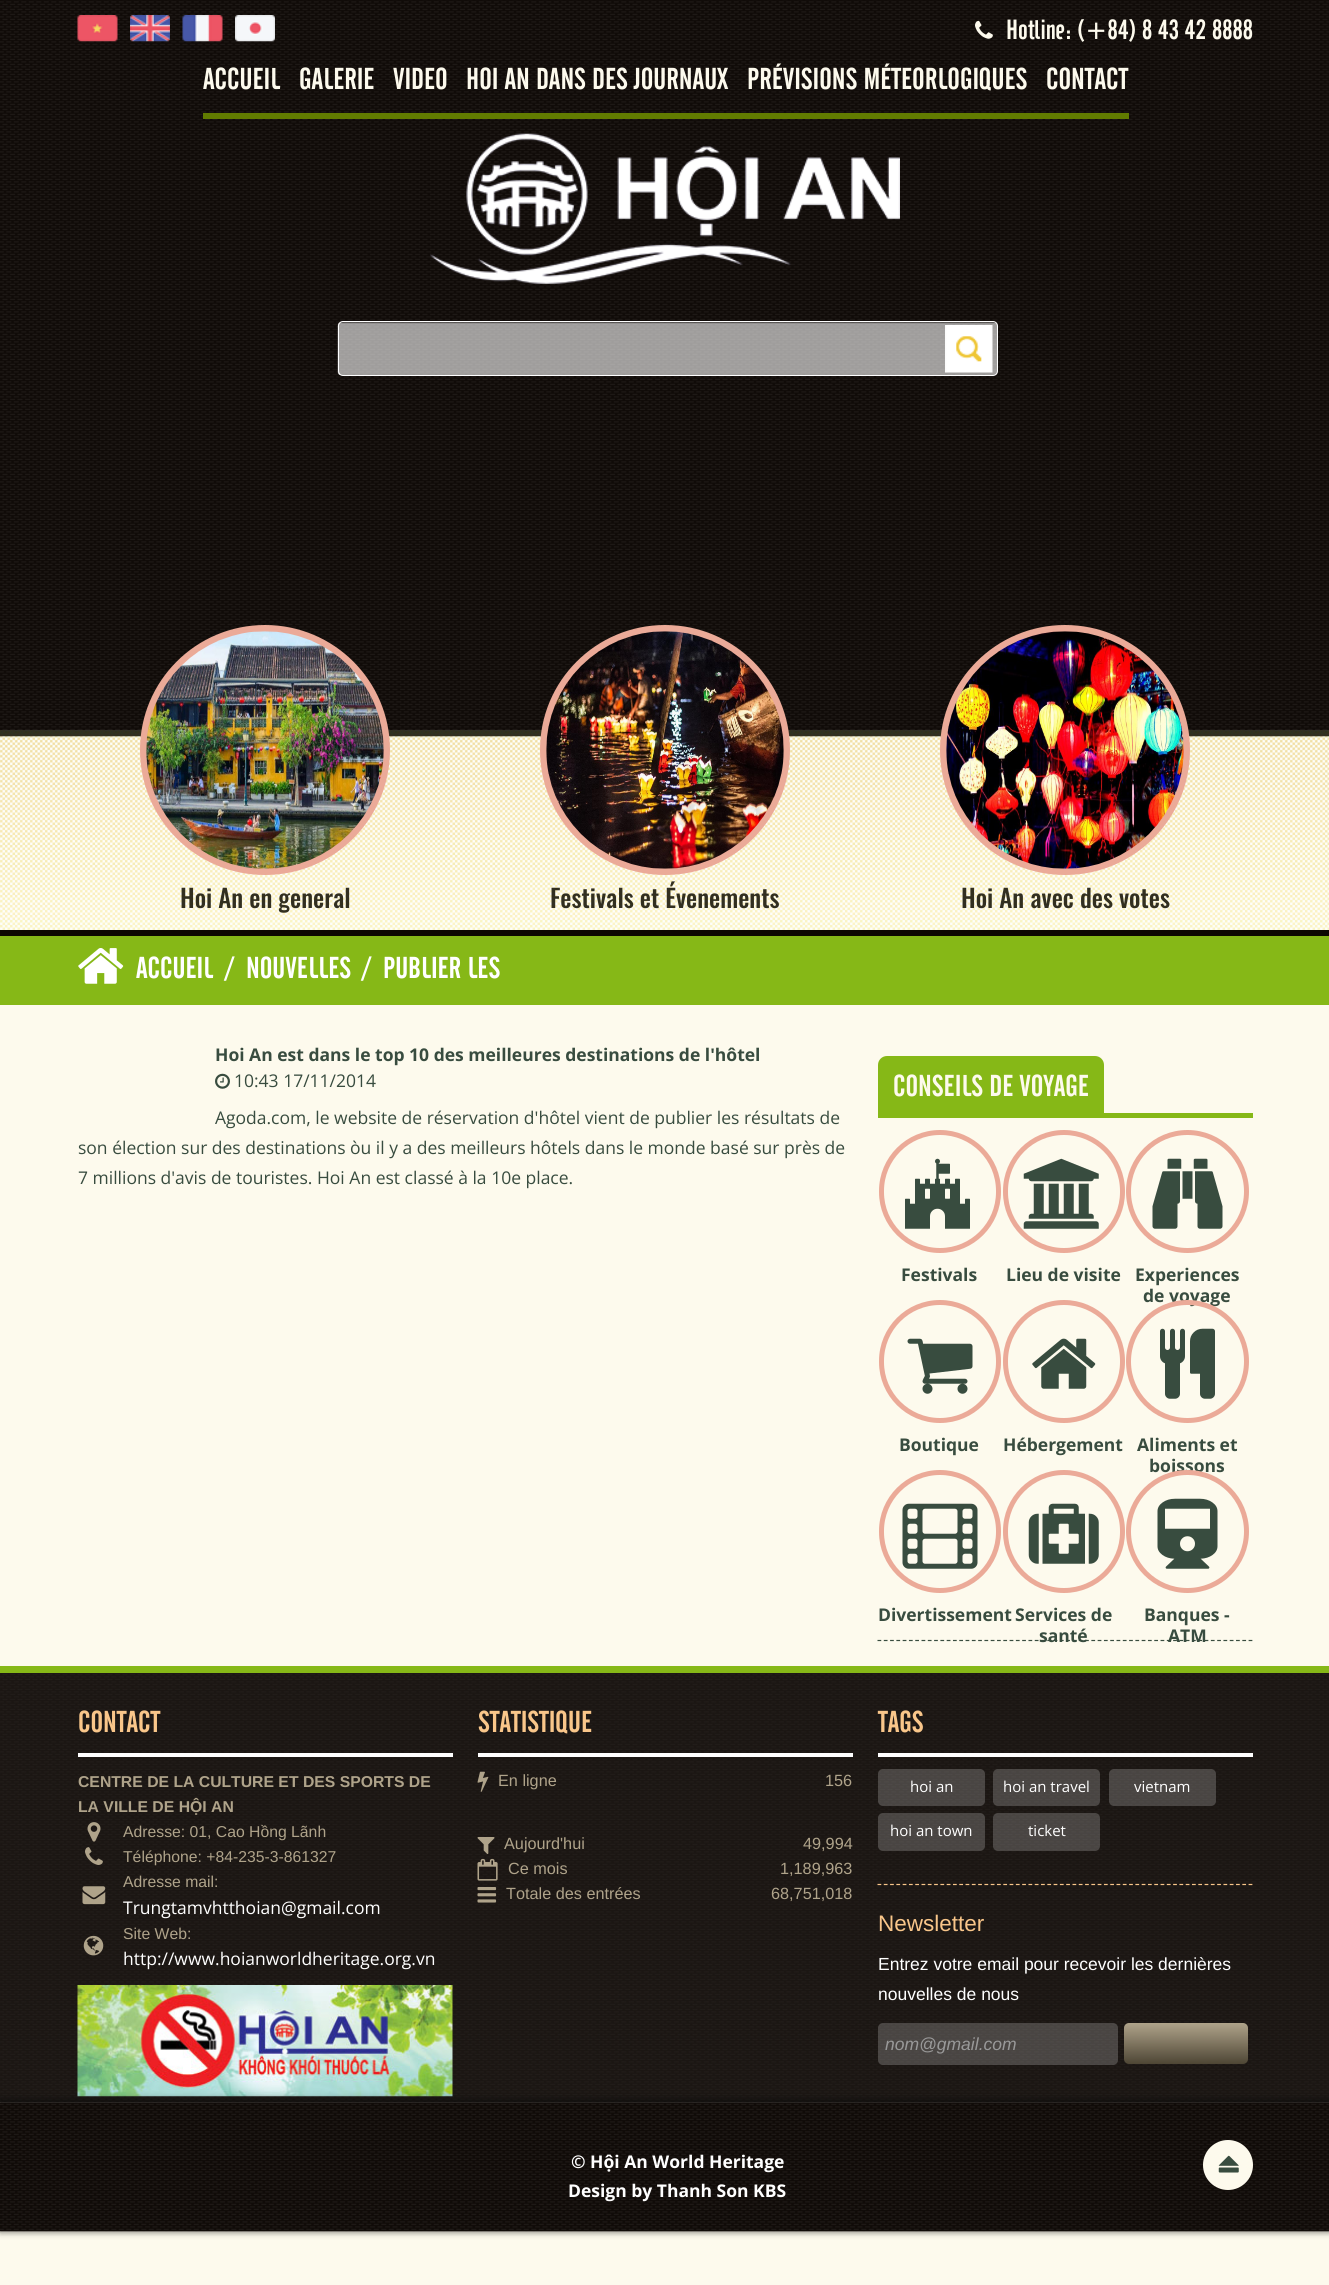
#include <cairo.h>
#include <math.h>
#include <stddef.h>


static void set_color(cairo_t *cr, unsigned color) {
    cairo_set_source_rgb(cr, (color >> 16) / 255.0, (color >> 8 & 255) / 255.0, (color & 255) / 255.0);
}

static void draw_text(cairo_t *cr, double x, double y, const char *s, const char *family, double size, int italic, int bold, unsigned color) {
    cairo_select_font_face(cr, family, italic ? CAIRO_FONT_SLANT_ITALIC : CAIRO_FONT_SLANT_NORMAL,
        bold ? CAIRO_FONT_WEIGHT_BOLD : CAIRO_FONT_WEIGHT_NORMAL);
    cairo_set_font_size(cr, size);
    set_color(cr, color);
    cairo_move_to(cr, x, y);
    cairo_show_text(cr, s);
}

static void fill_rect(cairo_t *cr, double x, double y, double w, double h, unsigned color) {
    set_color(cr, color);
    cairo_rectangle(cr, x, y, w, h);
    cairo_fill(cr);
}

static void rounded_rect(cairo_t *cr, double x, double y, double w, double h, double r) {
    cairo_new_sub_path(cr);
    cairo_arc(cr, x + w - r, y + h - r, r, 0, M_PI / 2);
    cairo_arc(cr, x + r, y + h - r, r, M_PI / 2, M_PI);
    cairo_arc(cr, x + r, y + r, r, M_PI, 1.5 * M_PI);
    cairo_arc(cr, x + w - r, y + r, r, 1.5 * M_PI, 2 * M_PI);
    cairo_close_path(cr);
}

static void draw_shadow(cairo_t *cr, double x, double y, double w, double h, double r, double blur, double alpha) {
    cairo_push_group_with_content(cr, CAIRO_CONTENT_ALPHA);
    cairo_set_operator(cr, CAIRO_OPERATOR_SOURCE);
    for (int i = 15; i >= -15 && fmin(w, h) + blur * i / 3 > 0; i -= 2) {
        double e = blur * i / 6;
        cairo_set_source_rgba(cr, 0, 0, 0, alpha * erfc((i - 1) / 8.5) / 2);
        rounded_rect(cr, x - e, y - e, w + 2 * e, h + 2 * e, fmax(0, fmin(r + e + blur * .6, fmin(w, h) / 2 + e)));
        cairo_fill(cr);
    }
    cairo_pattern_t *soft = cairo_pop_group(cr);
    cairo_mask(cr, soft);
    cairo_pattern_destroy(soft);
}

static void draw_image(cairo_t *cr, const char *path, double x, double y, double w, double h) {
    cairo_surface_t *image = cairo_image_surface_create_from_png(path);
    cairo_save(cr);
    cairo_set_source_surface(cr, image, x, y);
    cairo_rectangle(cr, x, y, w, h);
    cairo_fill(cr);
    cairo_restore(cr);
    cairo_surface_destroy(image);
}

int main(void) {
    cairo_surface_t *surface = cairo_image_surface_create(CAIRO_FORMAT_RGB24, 1329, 2285);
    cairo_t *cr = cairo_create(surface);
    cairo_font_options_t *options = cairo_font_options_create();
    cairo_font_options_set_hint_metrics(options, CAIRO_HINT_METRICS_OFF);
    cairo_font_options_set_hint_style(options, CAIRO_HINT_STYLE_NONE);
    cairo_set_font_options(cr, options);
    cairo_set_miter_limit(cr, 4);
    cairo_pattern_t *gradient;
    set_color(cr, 0xFDFAED);
    cairo_paint(cr);
    draw_image(cr, "assets/img1.png", 0, 0, 1329, 730);
    draw_image(cr, "assets/img2.png", 77, 15, 41, 27);
    draw_image(cr, "assets/img3.png", 130, 15, 40, 27);
    draw_image(cr, "assets/img4.png", 182, 15, 41, 27);
    draw_image(cr, "assets/img5.png", 235, 15, 40, 27);
    draw_image(cr, "assets/img6.png", 975, 20, 18, 19);
    draw_text(cr, 1006, 39, "Hotline: (+84) 8 43 42 8888", "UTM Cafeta", 27.5, 0, 0, 0xFDFAED);
    fill_rect(cr, 203, 113, 926, 6, 0x617B00);
    draw_text(cr, 203, 89, "ACCUEIL", "UTM Cafeta", 30, 0, 0, 0xFDFAED);
    draw_text(cr, 299, 89, "GALERIE", "UTM Cafeta", 30, 0, 0, 0xFDFAED);
    draw_text(cr, 393, 89, "VIDEO", "UTM Cafeta", 30, 0, 0, 0xFDFAED);
    draw_text(cr, 466, 89, "HOI AN DANS DES JOURNAUX", "UTM Cafeta", 30, 0, 0, 0xFDFAED);
    draw_text(cr, 747, 89, "PRÉVISIONS MÉTEORLOGIQUES", "UTM Cafeta", 30, 0, 0, 0xFDFAED);
    draw_text(cr, 1046, 89, "CONTACT", "UTM Cafeta", 30, 0, 0, 0xFDFAED);
    draw_image(cr, "assets/img7.png", 430, 133, 470, 151);
    draw_image(cr, "assets/img8.png", 337, 322, 661, 53);
    set_color(cr, 0x92908F);
    cairo_new_path(cr);
    cairo_move_to(cr, 342, 324);
    cairo_line_to(cr, 992, 324);
    cairo_curve_to(cr, 995, 324, 996, 325, 996, 328);
    cairo_curve_to(cr, 996, 325, 995, 323, 992, 323);
    cairo_line_to(cr, 343, 323);
    cairo_line_to(cr, 340, 324);
    cairo_line_to(cr, 339, 325);
    cairo_line_to(cr, 339, 328);
    cairo_curve_to(cr, 339, 325, 340, 324, 342, 324);
    cairo_close_path(cr);
    cairo_fill(cr);
    rounded_rect(cr, 338.5, 321.5, 659, 54, 4.5);
    set_color(cr, 0xFFFFFF);
    cairo_set_line_width(cr, 1);
    cairo_stroke(cr);
    draw_image(cr, "assets/img9.png", 945, 325, 48, 48);
    draw_image(cr, "assets/img13.png", 0, 730, 1329, 200);
    set_color(cr, 0xEBAA98);
    cairo_arc(cr, 265, 750, 122, 0, 2 * M_PI);
    cairo_fill_preserve(cr);
    cairo_set_line_width(cr, 6);
    cairo_stroke(cr);
    draw_image(cr, "assets/img10.png", 146, 631, 238, 238);
    draw_text(cr, 180, 908, "Hoi An en general", "Oswald Medium", 25, 0, 0, 0x322F20);
    set_color(cr, 0xEBAA98);
    cairo_new_path(cr);
    cairo_arc(cr, 665, 750, 122, 0, 2 * M_PI);
    cairo_fill_preserve(cr);
    cairo_stroke(cr);
    draw_image(cr, "assets/img11.png", 546, 631, 238, 238);
    draw_text(cr, 550, 908, "Festivals et Évenements", "Oswald Medium", 25, 0, 0, 0x322F20);
    set_color(cr, 0xEBAA98);
    cairo_new_path(cr);
    cairo_arc(cr, 1065, 750, 122, 0, 2 * M_PI);
    cairo_fill_preserve(cr);
    cairo_stroke(cr);
    draw_image(cr, "assets/img12.png", 946, 631, 238, 238);
    draw_text(cr, 961, 908, "Hoi An avec des votes", "Oswald Medium", 25, 0, 0, 0x322F20);
    fill_rect(cr, 0, 936, 1329, 69, 0x86B817);
    fill_rect(cr, 0, 930, 1329, 6, 0x0D0902);
    draw_image(cr, "assets/img14.png", 78, 948, 46, 36);
    draw_text(cr, 136, 978, "ACCUEIL", "UTM Cafeta", 30, 0, 0, 0xFFFFFF);
    draw_text(cr, 226, 978, "/", "UTM Cafeta", 30, 0, 0, 0xFFFFFF);
    draw_text(cr, 246, 978, "NOUVELLES", "UTM Cafeta", 30, 0, 0, 0xFFFFFF);
    draw_text(cr, 363, 978, "/", "UTM Cafeta", 30, 0, 0, 0xFFFFFF);
    draw_text(cr, 383, 978, "PUBLIER LES", "UTM Cafeta", 30, 0, 0, 0xFFFFFF);
    draw_text(cr, 215, 1061, "Hoi An est dans le top 10 des meilleures destinations de l'hôtel", "Open Sans", 17.5, 0, 1, 0x384C3F);
    draw_image(cr, "assets/img15.png", 215, 1073, 15, 16);
    draw_text(cr, 234, 1087, "10:43 17/11/2014", "Open Sans", 17.5, 0, 0, 0x384C3F);
    draw_text(cr, 215, 1124, "Agoda.com, le website de réservation d'hôtel vient de publier les résultats de", "Open Sans", 17.5, 0, 0, 0x384C3F);
    draw_text(cr, 78, 1154, "son élection sur des destinations òu il y a des meilleurs hôtels dans le monde basé sur près de", "Open Sans", 17.5, 0, 0, 0x384C3F);
    draw_text(cr, 78, 1184, "7 millions d'avis de touristes. Hoi An est classé à la 10e place.", "Open Sans", 17.5, 0, 0, 0x384C3F);
    fill_rect(cr, 878, 1113, 375, 5, 0x86B817);
    cairo_new_path(cr);
    cairo_move_to(cr, 887, 1056);
    cairo_line_to(cr, 1095, 1056);
    cairo_curve_to(cr, 1100, 1056, 1104, 1060, 1104, 1065);
    cairo_line_to(cr, 1104, 1113);
    cairo_line_to(cr, 878, 1113);
    cairo_line_to(cr, 878, 1065);
    cairo_curve_to(cr, 878, 1060, 882, 1056, 887, 1056);
    cairo_close_path(cr);
    cairo_fill(cr);
    draw_text(cr, 893, 1096, "CONSEILS DE VOYAGE", "UTM Cafeta", 30, 0, 0, 0xFDFAED);
    cairo_new_path(cr);
    cairo_move_to(cr, 877.5, 1640.5);
    cairo_line_to(cr, 1252.5, 1640.5);
    set_color(cr, 0x384C3F);
    cairo_set_line_width(cr, 1.2);
    cairo_set_dash(cr, (double[]){3.75, 2.54}, 2, 0);
    cairo_stroke(cr);
    rounded_rect(cr, 881.5, 1132.5, 117, 118, 58.5);
    set_color(cr, 0xEBAA98);
    cairo_set_line_width(cr, 5);
    cairo_set_dash(cr, NULL, 0, 0);
    cairo_stroke(cr);
    draw_image(cr, "assets/img16.png", 905, 1158, 65, 71);
    draw_text(cr, 901, 1281, "Festivals", "Open Sans", 17.5, 0, 1, 0x384C3F);
    rounded_rect(cr, 1005.5, 1132.5, 117, 118, 58.5);
    set_color(cr, 0xEBAA98);
    cairo_stroke(cr);
    draw_image(cr, "assets/img17.png", 1023, 1158, 76, 71);
    draw_text(cr, 1006, 1281, "Lieu de visite", "Open Sans", 17.5, 0, 1, 0x384C3F);
    cairo_new_path(cr);
    cairo_arc(cr, 1187.5, 1191.5, 59, 0, 2 * M_PI);
    set_color(cr, 0xEBAA98);
    cairo_stroke(cr);
    draw_image(cr, "assets/img18.png", 1152, 1158, 71, 71);
    draw_text(cr, 1135, 1281, "Experiences", "Open Sans", 17.5, 0, 1, 0x384C3F);
    draw_text(cr, 1143, 1302, "de voyage", "Open Sans", 17.5, 0, 1, 0x384C3F);
    rounded_rect(cr, 881.5, 1302.5, 117, 118, 58.5);
    set_color(cr, 0xEBAA98);
    cairo_stroke(cr);
    draw_image(cr, "assets/img19.png", 907, 1338, 66, 56);
    draw_text(cr, 899, 1451, "Boutique", "Open Sans", 17.5, 0, 1, 0x384C3F);
    rounded_rect(cr, 1005.5, 1302.5, 117, 118, 58.5);
    set_color(cr, 0xEBAA98);
    cairo_stroke(cr);
    draw_image(cr, "assets/img20.png", 1032, 1338, 64, 51);
    draw_text(cr, 1003, 1451, "Hébergement", "Open Sans", 17.5, 0, 1, 0x384C3F);
    cairo_new_path(cr);
    cairo_arc(cr, 1187.5, 1361.5, 59, 0, 2 * M_PI);
    set_color(cr, 0xEBAA98);
    cairo_stroke(cr);
    draw_image(cr, "assets/img21.png", 1160, 1328, 55, 71);
    draw_text(cr, 1137, 1451, "Aliments et", "Open Sans", 17.5, 0, 1, 0x384C3F);
    draw_text(cr, 1149, 1472, "boissons", "Open Sans", 17.5, 0, 1, 0x384C3F);
    rounded_rect(cr, 881.5, 1472.5, 117, 118, 58.5);
    set_color(cr, 0xEBAA98);
    cairo_stroke(cr);
    draw_image(cr, "assets/img22.png", 902, 1503, 76, 66);
    draw_text(cr, 878, 1621, "Divertissement", "Open Sans", 17.5, 0, 1, 0x384C3F);
    rounded_rect(cr, 1005.5, 1472.5, 117, 118, 58.5);
    set_color(cr, 0xEBAA98);
    cairo_stroke(cr);
    draw_image(cr, "assets/img23.png", 1028, 1503, 71, 61);
    draw_text(cr, 1015, 1621, "Services de", "Open Sans", 17.5, 0, 1, 0x384C3F);
    draw_text(cr, 1039, 1642, "santé", "Open Sans", 17.5, 0, 1, 0x384C3F);
    cairo_new_path(cr);
    cairo_arc(cr, 1187.5, 1531.5, 59, 0, 2 * M_PI);
    set_color(cr, 0xEBAA98);
    cairo_stroke(cr);
    draw_image(cr, "assets/img24.png", 1157, 1498, 61, 71);
    draw_text(cr, 1144, 1621, "Banques -", "Open Sans", 17.5, 0, 1, 0x384C3F);
    draw_text(cr, 1168, 1642, "ATM", "Open Sans", 17.5, 0, 1, 0x384C3F);
    draw_image(cr, "assets/img25.png", 0, 1673, 1329, 430);
    fill_rect(cr, 0, 1666, 1329, 7, 0x86B817);
    fill_rect(cr, 78, 1753, 375, 4, 0xFFFFFF);
    draw_text(cr, 78, 1732, "CONTACT", "UTM Cafeta", 30, 0, 0, 0xF9C68A);
    draw_text(cr, 78, 1787, "CENTRE DE LA CULTURE ET DES SPORTS DE", "Liberation Sans", 15.75, 0, 1, 0xAFA38A);
    draw_text(cr, 78, 1812, "LA VILLE DE HỘI AN", "Liberation Sans", 15.75, 0, 1, 0xAFA38A);
    draw_image(cr, "assets/img26.png", 87, 1822, 14, 20);
    draw_text(cr, 123, 1837, "Adresse: 01, Cao Hồng Lãnh", "Liberation Sans", 15.75, 0, 0, 0xAFA38A);
    draw_image(cr, "assets/img27.png", 85, 1847, 18, 18);
    draw_text(cr, 123, 1862, "Téléphone: +84-235-3-861327", "Liberation Sans", 15.75, 0, 0, 0xAFA38A);
    draw_image(cr, "assets/img28.png", 82, 1886, 24, 19);
    draw_text(cr, 123, 1887, "Adresse mail:", "Liberation Sans", 15.75, 0, 0, 0xAFA38A);
    draw_text(cr, 123, 1914, "Trungtamvhtthoian@gmail.com", "Open Sans", 17.5, 0, 0, 0xFFFFFF);
    draw_image(cr, "assets/img29.png", 83, 1935, 21, 21);
    draw_text(cr, 123, 1939, "Site Web:", "Liberation Sans", 15.75, 0, 0, 0xAFA38A);
    draw_text(cr, 123, 1965, "http://www.hoianworldheritage.org.vn", "Open Sans", 17.5, 0, 0, 0xFFFFFF);
    draw_image(cr, "assets/img30.png", 77, 1985, 376, 112);
    fill_rect(cr, 478, 1753, 375, 4, 0xFFFFFF);
    draw_text(cr, 478, 1732, "STATISTIQUE", "UTM Cafeta", 30, 0, 0, 0xF9C68A);
    draw_image(cr, "assets/img31.png", 477, 1771, 12, 21);
    draw_text(cr, 498, 1786, "En ligne", "Liberation Sans", 16.25, 0, 0, 0xAFA38A);
    draw_text(cr, 825, 1786, "156", "Liberation Sans", 16.25, 0, 0, 0xAFA38A);
    draw_image(cr, "assets/img32.png", 477, 1837, 18, 17);
    draw_text(cr, 504, 1849, "Aujourd'hui", "Liberation Sans", 16.25, 0, 0, 0xAFA38A);
    draw_text(cr, 803, 1849, "49,994", "Liberation Sans", 16.25, 0, 0, 0xAFA38A);
    draw_image(cr, "assets/img33.png", 477, 1858, 21, 23);
    draw_text(cr, 508, 1874, "Ce mois", "Liberation Sans", 16.25, 0, 0, 0xAFA38A);
    draw_text(cr, 780, 1874, "1,189,963", "Liberation Sans", 16.25, 0, 0, 0xAFA38A);
    draw_image(cr, "assets/img34.png", 477, 1887, 20, 16);
    draw_text(cr, 506, 1899, "Totale des entrées", "Liberation Sans", 16.25, 0, 0, 0xAFA38A);
    draw_text(cr, 771, 1899, "68,751,018", "Liberation Sans", 16.25, 0, 0, 0xAFA38A);
    fill_rect(cr, 878, 1753, 375, 4, 0xFFFFFF);
    draw_text(cr, 878, 1732, "TAGS", "UTM Cafeta", 30, 0, 0, 0xF9C68A);
    cairo_new_path(cr);
    cairo_move_to(cr, 877.5, 1884.5);
    cairo_line_to(cr, 1252.5, 1884.5);
    cairo_set_line_width(cr, 1.2);
    cairo_set_dash(cr, (double[]){3.75, 2.54}, 2, 0);
    cairo_stroke(cr);
    cairo_set_source_rgba(cr, 1, 1, 1, 0.2);
    rounded_rect(cr, 878, 1769, 107, 37, 5);
    cairo_fill(cr);
    draw_text(cr, 910, 1792, "hoi an", "Open Sans", 15, 0, 0, 0xFFFFFF);
    cairo_set_source_rgba(cr, 1, 1, 1, 0.2);
    rounded_rect(cr, 993, 1769, 107, 37, 5);
    cairo_fill(cr);
    draw_text(cr, 1003, 1792, "hoi an travel", "Open Sans", 15, 0, 0, 0xFFFFFF);
    cairo_set_source_rgba(cr, 1, 1, 1, 0.2);
    rounded_rect(cr, 1109, 1769, 107, 37, 5);
    cairo_fill(cr);
    draw_text(cr, 1134, 1792, "vietnam", "Open Sans", 15, 0, 0, 0xFFFFFF);
    cairo_set_source_rgba(cr, 1, 1, 1, 0.2);
    rounded_rect(cr, 878, 1813, 107, 38, 5);
    cairo_fill(cr);
    draw_text(cr, 890, 1836, "hoi an town", "Open Sans", 15, 0, 0, 0xFFFFFF);
    cairo_set_source_rgba(cr, 1, 1, 1, 0.2);
    rounded_rect(cr, 993, 1813, 107, 38, 5);
    cairo_fill(cr);
    draw_text(cr, 1028, 1836, "ticket", "Open Sans", 15, 0, 0, 0xFFFFFF);
    draw_text(cr, 878, 1931, "Newsletter", "Liberation Sans", 22.5, 0, 0, 0xF9C68A);
    draw_text(cr, 878, 1970, "Entrez votre email pour recevoir les dernières", "Liberation Sans", 17.5, 0, 0, 0xFFFFFF);
    draw_text(cr, 878, 2000, "nouvelles de nous", "Liberation Sans", 17.5, 0, 0, 0xFFFFFF);
    cairo_set_source_rgba(cr, 1, 1, 1, 0.2);
    rounded_rect(cr, 878, 2023, 240, 42, 5);
    cairo_fill(cr);
    draw_text(cr, 885, 2050, "nom@gmail.com", "Liberation Sans", 17.5, 1, 0, 0x999999);
    gradient = cairo_pattern_create_linear(1186, 2023, 1186, 2064);
    cairo_pattern_add_color_stop_rgba(gradient, 0, 0.686, 0.639, 0.541, 1);
    cairo_pattern_add_color_stop_rgba(gradient, 1, 0.306, 0.275, 0.208, 1);
    cairo_set_source(cr, gradient);
    cairo_pattern_destroy(gradient);
    rounded_rect(cr, 1124, 2023, 124, 41, 5);
    cairo_fill(cr);
    set_color(cr, 0x0C0C0C);
    draw_shadow(cr, 0, 2101, 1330, 129, 0, 4, 1);
    draw_image(cr, "assets/img35.png", 0, 2102, 1329, 130);
    draw_text(cr, 571, 2168, "© Hội An World Heritage", "Open Sans", 17.5, 0, 1, 0xFFFFFF);
    draw_text(cr, 568, 2197, "Design by Thanh Son KBS", "Open Sans", 17.5, 0, 1, 0xFFFFFF);
    set_color(cr, 0xFDFAED);
    cairo_new_path(cr);
    cairo_arc(cr, 1228, 2165, 25, 0, 2 * M_PI);
    cairo_fill(cr);
    draw_image(cr, "assets/img36.png", 1218, 2155, 21, 18);
    cairo_surface_write_to_png(surface, "output.png");
    cairo_font_options_destroy(options);
    cairo_destroy(cr);
    cairo_surface_destroy(surface);
    return 0;
}
